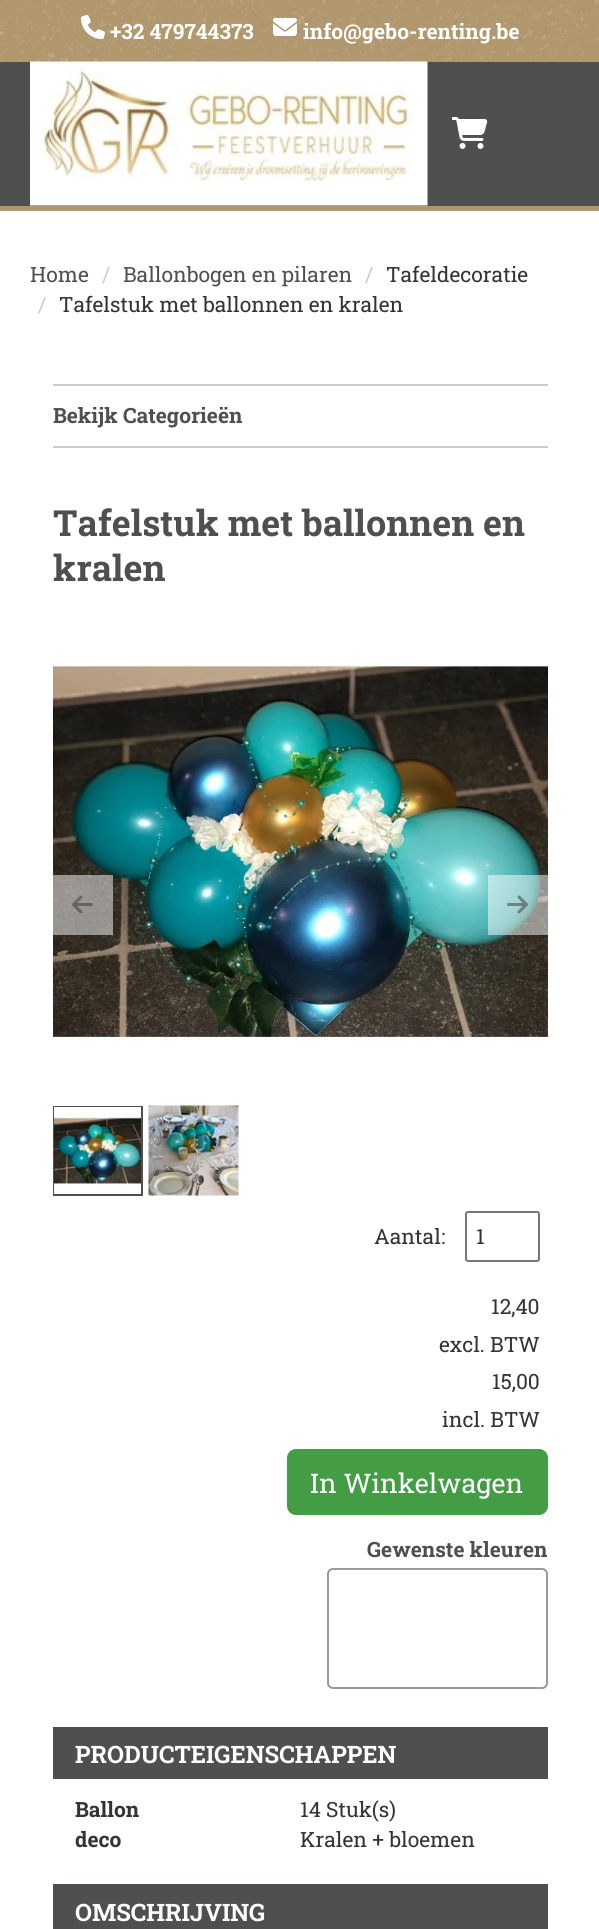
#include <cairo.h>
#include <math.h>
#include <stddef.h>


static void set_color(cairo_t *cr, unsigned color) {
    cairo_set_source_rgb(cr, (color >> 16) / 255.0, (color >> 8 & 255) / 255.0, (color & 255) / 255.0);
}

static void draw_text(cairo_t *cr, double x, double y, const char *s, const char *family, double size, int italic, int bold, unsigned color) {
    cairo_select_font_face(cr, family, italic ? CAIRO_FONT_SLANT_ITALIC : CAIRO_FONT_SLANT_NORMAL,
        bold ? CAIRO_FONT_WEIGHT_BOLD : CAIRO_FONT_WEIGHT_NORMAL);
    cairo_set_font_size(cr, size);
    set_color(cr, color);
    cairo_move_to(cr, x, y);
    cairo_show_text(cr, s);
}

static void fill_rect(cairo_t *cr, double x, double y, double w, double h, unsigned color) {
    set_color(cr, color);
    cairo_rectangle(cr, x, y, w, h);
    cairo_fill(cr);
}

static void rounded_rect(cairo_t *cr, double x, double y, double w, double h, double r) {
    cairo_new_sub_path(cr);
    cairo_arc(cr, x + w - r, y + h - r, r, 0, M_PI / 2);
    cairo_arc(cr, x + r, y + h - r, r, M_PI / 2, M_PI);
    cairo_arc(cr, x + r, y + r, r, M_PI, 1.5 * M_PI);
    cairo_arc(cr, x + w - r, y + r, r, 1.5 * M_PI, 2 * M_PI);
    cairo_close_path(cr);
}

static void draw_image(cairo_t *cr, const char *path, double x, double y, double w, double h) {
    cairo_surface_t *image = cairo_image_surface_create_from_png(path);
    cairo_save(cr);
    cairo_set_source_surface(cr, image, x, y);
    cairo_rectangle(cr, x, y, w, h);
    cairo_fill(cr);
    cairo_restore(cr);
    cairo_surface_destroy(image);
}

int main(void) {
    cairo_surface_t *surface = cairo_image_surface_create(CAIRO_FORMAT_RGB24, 599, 1929);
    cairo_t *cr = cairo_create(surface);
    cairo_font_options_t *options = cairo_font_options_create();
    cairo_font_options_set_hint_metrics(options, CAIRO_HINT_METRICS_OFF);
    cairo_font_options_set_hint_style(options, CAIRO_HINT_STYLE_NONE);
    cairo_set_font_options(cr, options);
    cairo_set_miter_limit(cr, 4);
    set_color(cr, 0xFFFFFF);
    cairo_paint(cr);
    fill_rect(cr, 0, 0, 599, 62, 0xB0976D);
    draw_image(cr, "assets/img1.png", 0, 0, 599, 62);
    draw_image(cr, "assets/img2.png", 81, 15, 24, 24);
    draw_text(cr, 110, 39, "+32 479744373", "Roboto Slab", 21, 0, 1, 0xFFFFFF);
    draw_image(cr, "assets/img3.png", 273, 18, 24, 18);
    draw_text(cr, 303, 39, "info@gebo-renting.be", "Roboto Slab", 21, 0, 1, 0xFFFFFF);
    fill_rect(cr, 0, 62, 599, 144, 0x4E5050);
    fill_rect(cr, 0, 206, 599, 5, 0xB0976D);
    draw_image(cr, "assets/img4.png", 30, 61, 398, 145);
    draw_image(cr, "assets/img5.png", 452, 117, 36, 32);
    draw_text(cr, 30, 282, "Home", "Roboto Slab", 21, 0, 0, 0x4E5050);
    draw_text(cr, 102, 282, "/", "Roboto Slab", 21, 0, 0, 0xCCCCCC);
    draw_text(cr, 123, 282, "Ballonbogen en pilaren", "Roboto Slab", 21, 0, 0, 0x4E5050);
    draw_text(cr, 365, 282, "/", "Roboto Slab", 21, 0, 0, 0xCCCCCC);
    draw_text(cr, 386, 282, "Tafeldecoratie", "Roboto Slab", 21, 0, 0, 0x333333);
    draw_text(cr, 38, 312, "/", "Roboto Slab", 21, 0, 0, 0xCCCCCC);
    draw_text(cr, 59, 312, "Tafelstuk met ballonnen en kralen", "Roboto Slab", 21, 0, 0, 0x333333);
    fill_rect(cr, 53, 384, 495, 2, 0xCCCCCC);
    fill_rect(cr, 53, 446, 495, 2, 0xCCCCCC);
    draw_text(cr, 53, 423, "Bekijk Categorieën", "Roboto Slab", 21, 0, 1, 0x4E5050);
    draw_text(cr, 53, 536, "Tafelstuk met ballonnen en", "Roboto Slab", 36, 0, 1, 0x4E5050);
    draw_text(cr, 53, 581, "kralen", "Roboto Slab", 36, 0, 1, 0x4E5050);
    draw_image(cr, "assets/img6.png", 53, 664, 495, 376);
    cairo_set_source_rgba(cr, 1, 1, 1, 0.5);
    cairo_rectangle(cr, 53, 875, 60, 60);
    cairo_fill(cr);
    draw_image(cr, "assets/img7.png", 72, 895, 21, 19);
    cairo_rectangle(cr, 488, 875, 60, 60);
    cairo_fill(cr);
    draw_image(cr, "assets/img8.png", 507, 895, 21, 19);
    cairo_rectangle(cr, 54, 1107, 88, 88);
    set_color(cr, 0x4E5050);
    cairo_stroke(cr);
    draw_image(cr, "assets/img9.png", 54, 1107, 87, 87);
    draw_image(cr, "assets/img10.png", 148, 1105, 91, 91);
    draw_text(cr, 374, 1244, "Aantal:", "Roboto Slab", 21, 0, 0, 0x333333);
    rounded_rect(cr, 466, 1212, 73, 49, 2);
    set_color(cr, 0x767676);
    cairo_stroke(cr);
    draw_text(cr, 476, 1244, "1", "Roboto Slab", 21, 0, 0, 0x333333);
    draw_text(cr, 491, 1314, "12,40", "Roboto Slab", 21, 0, 0, 0x333333);
    draw_text(cr, 439, 1352, "excl. BTW", "Roboto Slab", 21, 0, 0, 0x333333);
    draw_text(cr, 492, 1389, "15,00", "Roboto Slab", 21, 0, 0, 0x333333);
    draw_text(cr, 442, 1427, "incl. BTW", "Roboto Slab", 21, 0, 0, 0x333333);
    set_color(cr, 0x449D44);
    rounded_rect(cr, 287, 1449, 261, 66, 9);
    cairo_fill(cr);
    draw_text(cr, 310, 1493, "In Winkelwagen", "Roboto Slab", 27, 0, 0, 0xFFFFFF);
    draw_text(cr, 367, 1557, "Gewenste kleuren", "Roboto Slab", 21, 0, 1, 0x4E5050);
    rounded_rect(cr, 328, 1569, 219, 119, 5);
    set_color(cr, 0x999999);
    cairo_stroke(cr);
    fill_rect(cr, 53, 1727, 495, 52, 0x4E5050);
    draw_text(cr, 75, 1763, "PRODUCTEIGENSCHAPPEN", "Roboto Slab", 24, 0, 1, 0xFFFFFF);
    draw_text(cr, 75, 1817, "Ballon", "Roboto Slab", 21, 0, 1, 0x333333);
    draw_text(cr, 300, 1817, "14 Stuk(s)", "Roboto Slab", 21, 0, 0, 0x333333);
    draw_text(cr, 75, 1847, "deco", "Roboto Slab", 21, 0, 1, 0x333333);
    draw_text(cr, 300, 1847, "Kralen + bloemen", "Roboto Slab", 21, 0, 0, 0x333333);
    fill_rect(cr, 53, 1884, 495, 45, 0x4E5050);
    draw_text(cr, 75, 1921, "OMSCHRIJVING", "Roboto Slab", 24, 0, 1, 0xFFFFFF);
    cairo_surface_write_to_png(surface, "output.png");
    cairo_font_options_destroy(options);
    cairo_destroy(cr);
    cairo_surface_destroy(surface);
    return 0;
}
